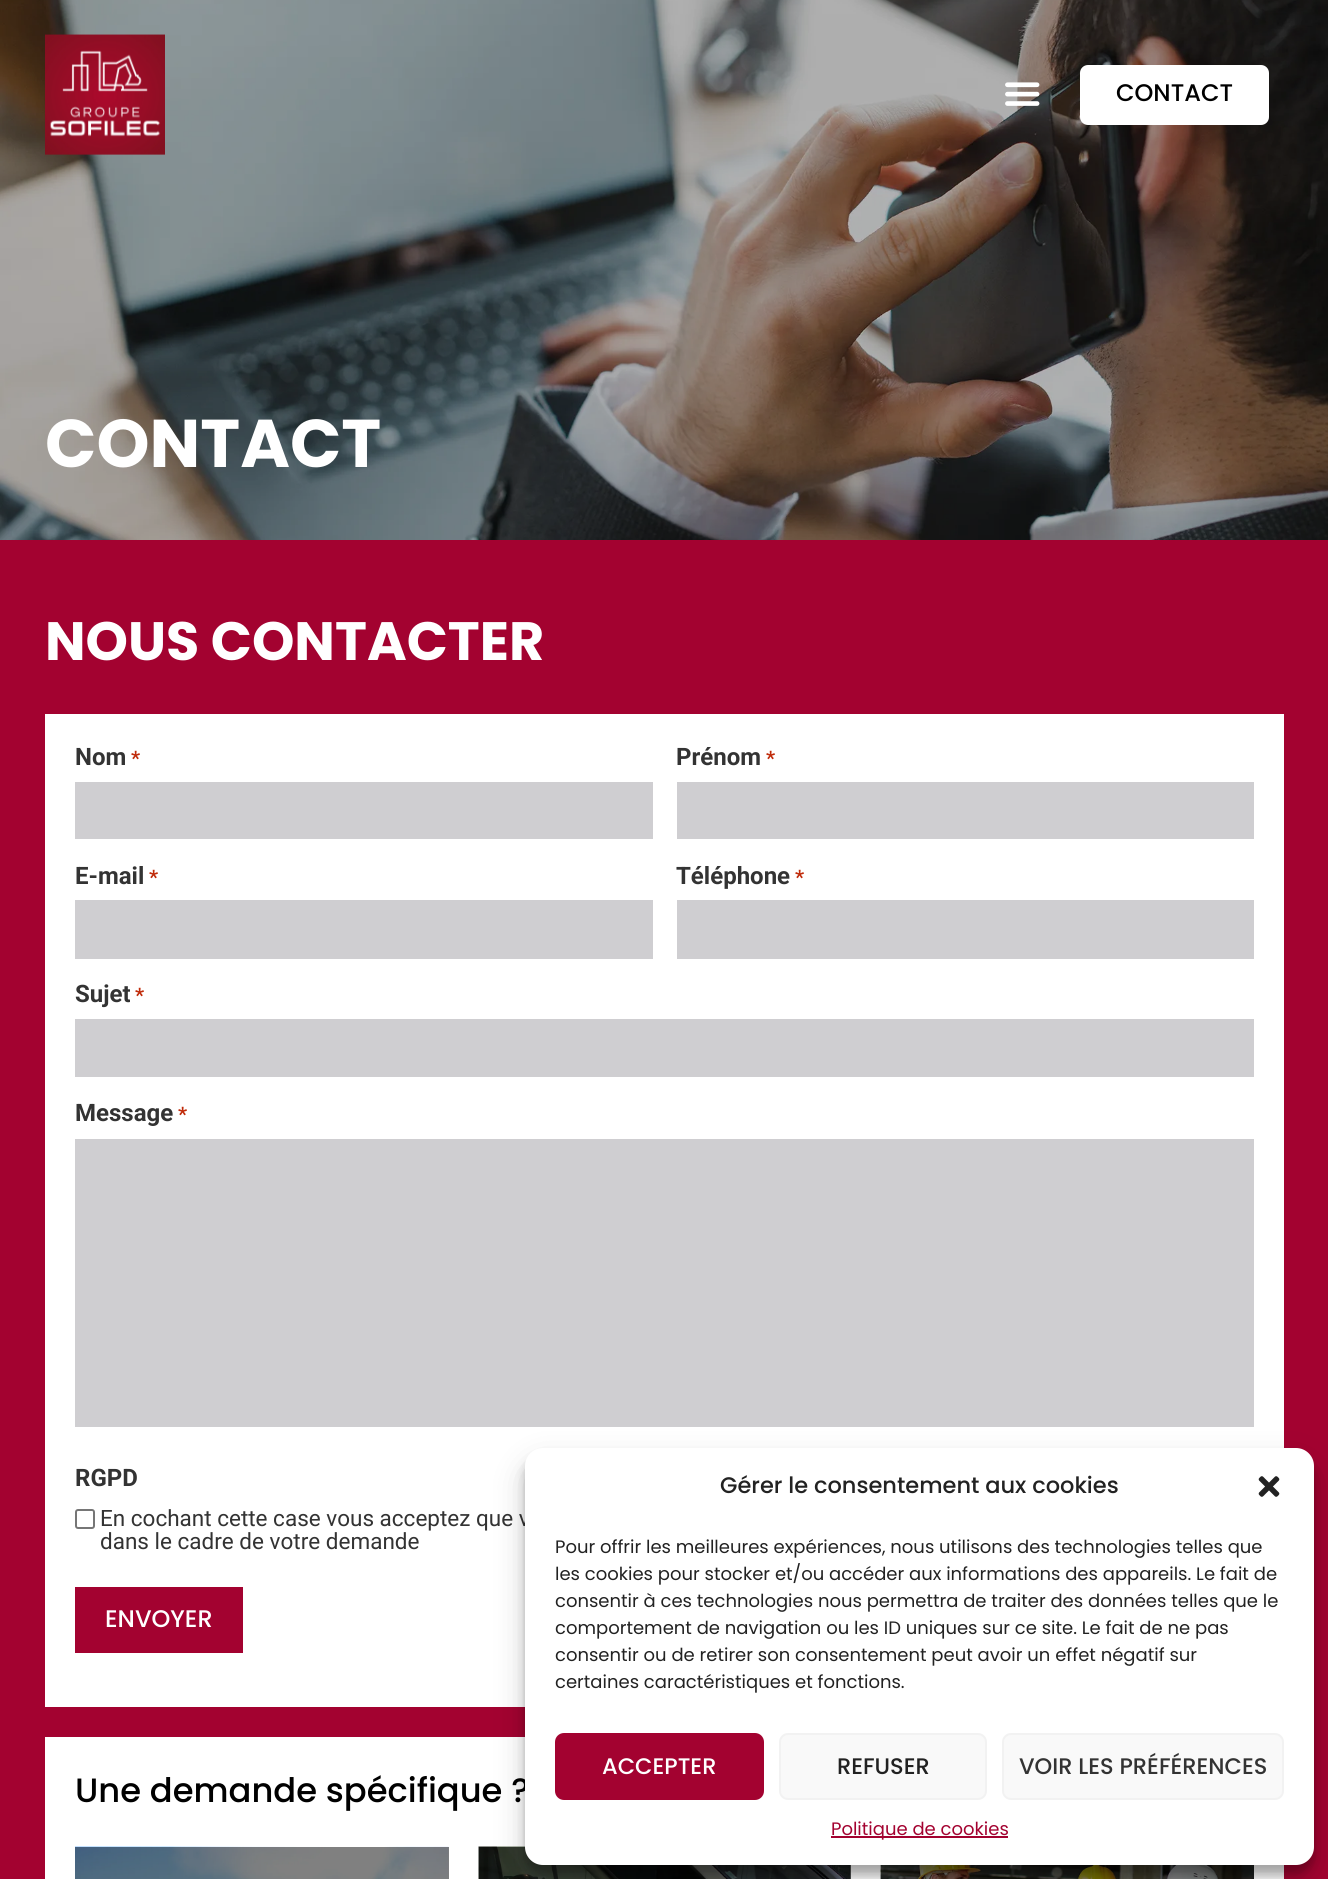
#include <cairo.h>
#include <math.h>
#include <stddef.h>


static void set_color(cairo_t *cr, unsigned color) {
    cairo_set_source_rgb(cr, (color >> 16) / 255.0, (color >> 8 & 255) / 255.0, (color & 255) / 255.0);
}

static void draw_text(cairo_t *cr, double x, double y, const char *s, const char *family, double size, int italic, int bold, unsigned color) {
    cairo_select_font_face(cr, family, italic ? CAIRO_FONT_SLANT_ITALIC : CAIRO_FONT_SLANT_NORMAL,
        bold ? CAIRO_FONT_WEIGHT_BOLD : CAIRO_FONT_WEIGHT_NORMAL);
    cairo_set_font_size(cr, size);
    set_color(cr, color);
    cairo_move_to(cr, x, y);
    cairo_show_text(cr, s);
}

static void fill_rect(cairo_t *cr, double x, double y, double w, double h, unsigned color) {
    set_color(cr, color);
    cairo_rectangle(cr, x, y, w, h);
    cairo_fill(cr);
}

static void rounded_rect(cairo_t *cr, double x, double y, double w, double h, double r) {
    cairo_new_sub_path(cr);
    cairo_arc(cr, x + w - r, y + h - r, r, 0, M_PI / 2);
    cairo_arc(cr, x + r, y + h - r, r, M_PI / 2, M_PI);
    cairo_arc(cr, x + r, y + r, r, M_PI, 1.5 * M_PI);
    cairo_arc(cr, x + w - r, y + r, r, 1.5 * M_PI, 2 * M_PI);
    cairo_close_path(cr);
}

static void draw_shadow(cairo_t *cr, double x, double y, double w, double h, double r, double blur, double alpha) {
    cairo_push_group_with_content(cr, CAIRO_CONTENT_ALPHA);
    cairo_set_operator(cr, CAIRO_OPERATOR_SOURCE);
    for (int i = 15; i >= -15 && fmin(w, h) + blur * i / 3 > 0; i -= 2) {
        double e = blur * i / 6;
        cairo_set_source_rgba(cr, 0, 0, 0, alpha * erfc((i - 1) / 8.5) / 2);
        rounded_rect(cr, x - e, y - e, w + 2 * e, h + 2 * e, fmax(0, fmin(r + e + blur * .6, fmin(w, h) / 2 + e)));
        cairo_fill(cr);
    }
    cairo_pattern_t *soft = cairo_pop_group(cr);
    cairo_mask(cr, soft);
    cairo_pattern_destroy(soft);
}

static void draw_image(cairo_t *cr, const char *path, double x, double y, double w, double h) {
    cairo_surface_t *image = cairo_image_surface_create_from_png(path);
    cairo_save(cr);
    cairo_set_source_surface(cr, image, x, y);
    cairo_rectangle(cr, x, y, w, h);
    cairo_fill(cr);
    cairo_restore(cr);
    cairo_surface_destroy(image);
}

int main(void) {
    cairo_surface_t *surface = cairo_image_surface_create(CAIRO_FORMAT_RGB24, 1328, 1879);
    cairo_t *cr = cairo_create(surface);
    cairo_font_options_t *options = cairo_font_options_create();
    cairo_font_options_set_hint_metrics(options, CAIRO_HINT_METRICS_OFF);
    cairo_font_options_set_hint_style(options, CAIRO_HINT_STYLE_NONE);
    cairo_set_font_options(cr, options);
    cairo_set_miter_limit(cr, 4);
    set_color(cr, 0xFFFFFF);
    cairo_paint(cr);
    draw_image(cr, "assets/img3.png", 0, 0, 1328, 540);
    draw_image(cr, "assets/img1.png", 45, 34, 120, 121);
    draw_image(cr, "assets/img2.png", 1005, 82, 35, 24);
    set_color(cr, 0xFFFFFF);
    rounded_rect(cr, 1080, 65, 189, 60, 8);
    cairo_fill(cr);
    draw_text(cr, 1116, 101, "CONTACT", "Poppins Medium", 24, 0, 0, 0x000000);
    draw_text(cr, 45, 467, "CONTACT", "Poppins", 67.5, 0, 1, 0xFFFFFF);
    fill_rect(cr, 0, 540, 1328, 1339, 0xA30230);
    draw_text(cr, 45, 660, "NOUS CONTACTER", "Poppins", 54, 0, 1, 0xFFFFFF);
    fill_rect(cr, 45, 714, 1239, 993, 0xFFFFFF);
    draw_text(cr, 75, 765, "Nom", "Roboto", 24, 0, 1, 0x333333);
    draw_text(cr, 131, 765, "*", "Roboto", 20, 0, 1, 0xC02B0A);
    fill_rect(cr, 75, 782, 578, 57, 0xCFCED1);
    draw_text(cr, 676, 765, "Prénom", "Roboto", 24, 0, 1, 0x333333);
    draw_text(cr, 766, 765, "*", "Roboto", 20, 0, 1, 0xC02B0A);
    fill_rect(cr, 677, 782, 577, 57, 0xCFCED1);
    draw_text(cr, 75, 884, "E-mail", "Roboto", 24, 0, 1, 0x333333);
    draw_text(cr, 149, 884, "*", "Roboto", 20, 0, 1, 0xC02B0A);
    fill_rect(cr, 75, 900, 578, 59, 0xCFCED1);
    draw_text(cr, 676, 884, "Téléphone", "Roboto", 24, 0, 1, 0x333333);
    draw_text(cr, 795, 884, "*", "Roboto", 20, 0, 1, 0xC02B0A);
    fill_rect(cr, 677, 900, 577, 59, 0xCFCED1);
    draw_text(cr, 75, 1002, "Sujet", "Roboto", 24, 0, 1, 0x333333);
    draw_text(cr, 135, 1002, "*", "Roboto", 20, 0, 1, 0xC02B0A);
    fill_rect(cr, 75, 1019, 1179, 58, 0xCFCED1);
    draw_text(cr, 75, 1121, "Message", "Roboto", 24, 0, 1, 0x333333);
    draw_text(cr, 178, 1121, "*", "Roboto", 20, 0, 1, 0xC02B0A);
    fill_rect(cr, 75, 1139, 1179, 288, 0xCFCED1);
    draw_text(cr, 75, 1486, "RGPD", "Roboto", 24, 0, 1, 0x333333);
    rounded_rect(cr, 76, 1510, 18, 18, 2);
    set_color(cr, 0x767676);
    cairo_stroke(cr);
    draw_text(cr, 100, 1526, "En cochant cette case vous acceptez que v", "Roboto", 22.5, 0, 0, 0x333333);
    draw_text(cr, 100, 1549, "dans le cadre de votre demande", "Roboto", 22.5, 0, 0, 0x333333);
    fill_rect(cr, 75, 1587, 168, 66, 0xA30230);
    draw_text(cr, 105, 1627, "ENVOYER", "Poppins Medium", 24, 0, 0, 0xFFFFFF);
    fill_rect(cr, 45, 1737, 1239, 142, 0xFFFFFF);
    fill_rect(cr, 850, 1865, 1, 14, 0x808080);
    fill_rect(cr, 448, 1847, 1, 32, 0x808080);
    draw_text(cr, 75, 1802, "Une demande spécifique ?", "Poppins Medium", 33.75, 0, 0, 0x000000);
    draw_image(cr, "assets/img4.png", 75, 1846, 374, 33);
    draw_image(cr, "assets/img5.png", 478, 1846, 373, 33);
    draw_image(cr, "assets/img6.png", 880, 1865, 374, 14);
    set_color(cr, 0x000000);
    draw_shadow(cr, 525, 1457, 789, 417, 18, 4.5, 0.23);
    draw_shadow(cr, 525, 1463, 789, 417, 18, 15, 0.19);
    set_color(cr, 0xFFFFFF);
    rounded_rect(cr, 525, 1448, 789, 417, 18);
    cairo_fill(cr);
    draw_text(cr, 720, 1493, "Gérer le consentement aux cookies", "Poppins Medium", 22.5, 0, 0, 0x222222);
    draw_image(cr, "assets/img7.png", 1258, 1476, 22, 21);
    draw_text(cr, 555, 1553, "Pour offrir les meilleures expériences, nous utilisons des technologies telles que", "Poppins", 18, 0, 0, 0x222222);
    draw_text(cr, 555, 1580, "les cookies pour stocker et/ou accéder aux informations des appareils. Le fait de", "Poppins", 18, 0, 0, 0x222222);
    draw_text(cr, 555, 1607, "consentir à ces technologies nous permettra de traiter des données telles que le", "Poppins", 18, 0, 0, 0x222222);
    draw_text(cr, 555, 1634, "comportement de navigation ou les ID uniques sur ce site. Le fait de ne pas", "Poppins", 18, 0, 0, 0x222222);
    draw_text(cr, 555, 1661, "consentir ou de retirer son consentement peut avoir un effet négatif sur", "Poppins", 18, 0, 0, 0x222222);
    draw_text(cr, 555, 1688, "certaines caractéristiques et fonctions.", "Poppins", 18, 0, 0, 0x222222);
    set_color(cr, 0xA30230);
    rounded_rect(cr, 556, 1734, 207, 65, 8);
    cairo_fill_preserve(cr);
    cairo_stroke(cr);
    draw_text(cr, 602, 1774, "ACCEPTER", "Poppins Medium", 22.5, 0, 0, 0xFFFFFF);
    set_color(cr, 0xF9F9F9);
    rounded_rect(cr, 780, 1734, 206, 65, 8);
    cairo_fill_preserve(cr);
    set_color(cr, 0xF2F2F2);
    cairo_stroke(cr);
    draw_text(cr, 837, 1774, "REFUSER", "Poppins Medium", 22.5, 0, 0, 0x222222);
    set_color(cr, 0xF9F9F9);
    rounded_rect(cr, 1003, 1734, 280, 65, 8);
    cairo_fill_preserve(cr);
    set_color(cr, 0xF2F2F2);
    cairo_stroke(cr);
    draw_text(cr, 1019, 1774, "VOIR LES PRÉFÉRENCES", "Poppins Medium", 22.5, 0, 0, 0x333333);
    fill_rect(cr, 831, 1836, 177, 2, 0xA30230);
    draw_text(cr, 831, 1835, "Politique de cookies", "Poppins", 18, 0, 0, 0xA30230);
    cairo_surface_write_to_png(surface, "output.png");
    cairo_font_options_destroy(options);
    cairo_destroy(cr);
    cairo_surface_destroy(surface);
    return 0;
}
